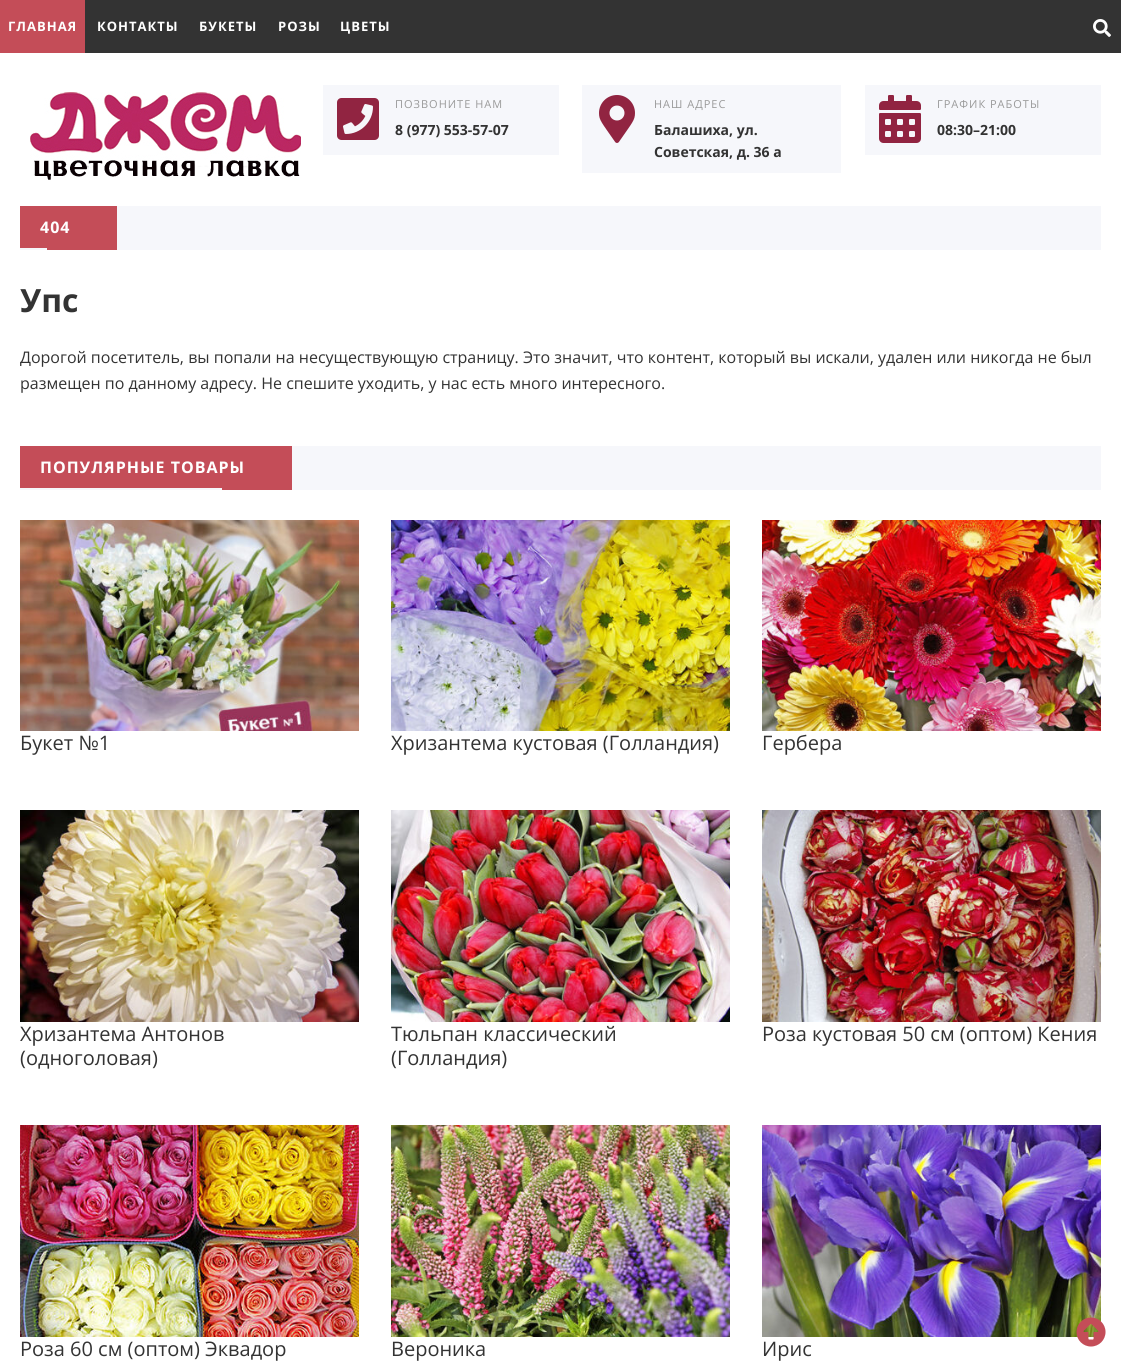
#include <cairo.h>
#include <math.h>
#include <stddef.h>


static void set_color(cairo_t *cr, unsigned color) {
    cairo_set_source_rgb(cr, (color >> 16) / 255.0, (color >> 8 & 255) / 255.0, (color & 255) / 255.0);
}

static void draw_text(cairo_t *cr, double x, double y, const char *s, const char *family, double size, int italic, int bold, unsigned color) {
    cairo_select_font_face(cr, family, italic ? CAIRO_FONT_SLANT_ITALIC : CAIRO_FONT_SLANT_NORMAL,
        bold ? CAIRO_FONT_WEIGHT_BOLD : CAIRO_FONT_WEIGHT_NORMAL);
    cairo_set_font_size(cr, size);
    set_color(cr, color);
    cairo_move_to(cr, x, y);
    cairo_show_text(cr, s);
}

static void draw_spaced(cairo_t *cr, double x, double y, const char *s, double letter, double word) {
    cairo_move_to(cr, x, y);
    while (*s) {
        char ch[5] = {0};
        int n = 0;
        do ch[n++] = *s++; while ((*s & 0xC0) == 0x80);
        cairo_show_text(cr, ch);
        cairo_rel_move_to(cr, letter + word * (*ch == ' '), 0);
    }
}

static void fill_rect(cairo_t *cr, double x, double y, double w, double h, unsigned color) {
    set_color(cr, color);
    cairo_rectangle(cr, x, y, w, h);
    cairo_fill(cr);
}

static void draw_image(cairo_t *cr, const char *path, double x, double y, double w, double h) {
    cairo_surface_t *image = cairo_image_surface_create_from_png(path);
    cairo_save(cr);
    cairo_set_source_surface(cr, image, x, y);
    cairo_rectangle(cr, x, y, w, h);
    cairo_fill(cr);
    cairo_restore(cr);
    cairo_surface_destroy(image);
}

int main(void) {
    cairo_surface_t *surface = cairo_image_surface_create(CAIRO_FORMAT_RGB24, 1121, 1366);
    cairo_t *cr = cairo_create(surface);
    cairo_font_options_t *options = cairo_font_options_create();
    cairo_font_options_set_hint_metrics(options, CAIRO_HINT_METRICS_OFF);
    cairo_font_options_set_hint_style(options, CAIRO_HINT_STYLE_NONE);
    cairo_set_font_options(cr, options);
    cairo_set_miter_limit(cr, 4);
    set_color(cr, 0xFFFFFF);
    cairo_paint(cr);
    fill_rect(cr, 85, 0, 1036, 53, 0x333333);
    fill_rect(cr, 0, 0, 85, 53, 0xC44D58);
    cairo_select_font_face(cr, "Open Sans", CAIRO_FONT_SLANT_NORMAL, CAIRO_FONT_WEIGHT_BOLD);
    cairo_set_font_size(cr, 13);
    set_color(cr, 0xFFFFFF);
    draw_spaced(cr, 8, 31, "ГЛАВНАЯ", 1, 0);
    draw_spaced(cr, 97, 31, "КОНТАКТЫ", 1, 0);
    draw_spaced(cr, 199, 31, "БУКЕТЫ", 1, 0);
    draw_spaced(cr, 278, 31, "РОЗЫ", 1, 0);
    draw_spaced(cr, 340, 31, "ЦВЕТЫ", 1, 0);
    draw_image(cr, "assets/img1.png", 1093, 19, 18, 18);
    draw_image(cr, "assets/img2.png", 30, 92, 271, 88);
    fill_rect(cr, 323, 85, 236, 70, 0xF6F7FB);
    draw_image(cr, "assets/img3.png", 337, 98, 42, 42);
    cairo_select_font_face(cr, "Open Sans", CAIRO_FONT_SLANT_NORMAL, CAIRO_FONT_WEIGHT_NORMAL);
    cairo_set_font_size(cr, 11);
    set_color(cr, 0x999999);
    draw_spaced(cr, 395, 108, "ПОЗВОНИТЕ НАМ", 1, 0);
    draw_text(cr, 395, 135, "8 (977) 553-57-07", "Open Sans", 14, 0, 1, 0x333333);
    fill_rect(cr, 582, 85, 259, 88, 0xF6F7FB);
    draw_image(cr, "assets/img4.png", 599, 95, 36, 48);
    cairo_select_font_face(cr, "Open Sans", CAIRO_FONT_SLANT_NORMAL, CAIRO_FONT_WEIGHT_NORMAL);
    cairo_set_font_size(cr, 11);
    set_color(cr, 0x999999);
    draw_spaced(cr, 654, 108, "НАШ АДРЕС", 1, 0);
    draw_text(cr, 654, 135, "Балашиха, ул.", "Open Sans", 14, 0, 1, 0x333333);
    draw_text(cr, 654, 157, "Советская, д. 36 а", "Open Sans", 14, 0, 1, 0x333333);
    fill_rect(cr, 865, 85, 236, 70, 0xF6F7FB);
    draw_image(cr, "assets/img5.png", 879, 95, 42, 48);
    cairo_select_font_face(cr, "Open Sans", CAIRO_FONT_SLANT_NORMAL, CAIRO_FONT_WEIGHT_NORMAL);
    cairo_set_font_size(cr, 11);
    set_color(cr, 0x999999);
    draw_spaced(cr, 937, 108, "ГРАФИК РАБОТЫ", 1, 0);
    draw_text(cr, 937, 135, "08:30–21:00", "Open Sans", 14, 0, 1, 0x333333);
    fill_rect(cr, 20, 206, 1081, 44, 0xF6F7FB);
    fill_rect(cr, 20, 206, 27, 42, 0xC44D58);
    fill_rect(cr, 47, 206, 70, 44, 0xC44D58);
    cairo_set_font_size(cr, 16);
    set_color(cr, 0xFFFFFF);
    draw_spaced(cr, 40, 233, "404", 1, 0);
    draw_text(cr, 20, 312, "Упс", "Open Sans", 32, 0, 1, 0x333333);
    draw_text(cr, 20, 363, "Дорогой посетитель, вы попали на несуществующую страницу. Это значит, что контент, который вы искали, удален или никогда не был", "Open Sans", 16, 0, 0, 0x333333);
    draw_text(cr, 20, 389, "размещен по данному адресу. Не спешите уходить, у нас есть много интересного.", "Open Sans", 16, 0, 0, 0x333333);
    fill_rect(cr, 20, 446, 1081, 44, 0xF6F7FB);
    fill_rect(cr, 20, 446, 202, 42, 0xC44D58);
    fill_rect(cr, 222, 446, 70, 44, 0xC44D58);
    cairo_select_font_face(cr, "Open Sans", CAIRO_FONT_SLANT_NORMAL, CAIRO_FONT_WEIGHT_BOLD);
    set_color(cr, 0xFFFFFF);
    draw_spaced(cr, 40, 473, "ПОПУЛЯРНЫЕ ТОВАРЫ", 1, 0);
    draw_image(cr, "assets/img6.png", 20, 520, 339, 211);
    draw_text(cr, 20, 750, "Букет №1", "Open Sans", 20, 0, 0, 0x333333);
    draw_image(cr, "assets/img7.png", 391, 520, 339, 211);
    draw_text(cr, 391, 750, "Хризантема кустовая (Голландия)", "Open Sans", 20, 0, 0, 0x333333);
    draw_image(cr, "assets/img8.png", 762, 520, 339, 211);
    draw_text(cr, 762, 750, "Гербера", "Open Sans", 20, 0, 0, 0x333333);
    draw_image(cr, "assets/img9.png", 20, 810, 339, 212);
    draw_text(cr, 20, 1041, "Хризантема Антонов", "Open Sans", 20, 0, 0, 0x333333);
    draw_text(cr, 20, 1065, "(одноголовая)", "Open Sans", 20, 0, 0, 0x333333);
    draw_image(cr, "assets/img10.png", 391, 810, 339, 212);
    draw_text(cr, 391, 1041, "Тюльпан классический", "Open Sans", 20, 0, 0, 0x333333);
    draw_text(cr, 391, 1065, "(Голландия)", "Open Sans", 20, 0, 0, 0x333333);
    draw_image(cr, "assets/img11.png", 762, 810, 339, 212);
    draw_text(cr, 762, 1041, "Роза кустовая 50 см (оптом) Кения", "Open Sans", 20, 0, 0, 0x333333);
    draw_image(cr, "assets/img12.png", 20, 1125, 339, 212);
    draw_text(cr, 20, 1356, "Роза 60 см (оптом) Эквадор", "Open Sans", 20, 0, 0, 0x333333);
    draw_image(cr, "assets/img13.png", 391, 1125, 339, 212);
    draw_text(cr, 391, 1356, "Вероника", "Open Sans", 20, 0, 0, 0x333333);
    draw_image(cr, "assets/img14.png", 762, 1125, 339, 212);
    draw_text(cr, 762, 1356, "Ирис", "Open Sans", 20, 0, 0, 0x333333);
    draw_image(cr, "assets/img15.png", 1076, 1317, 30, 30);
    cairo_surface_write_to_png(surface, "output.png");
    cairo_font_options_destroy(options);
    cairo_destroy(cr);
    cairo_surface_destroy(surface);
    return 0;
}
